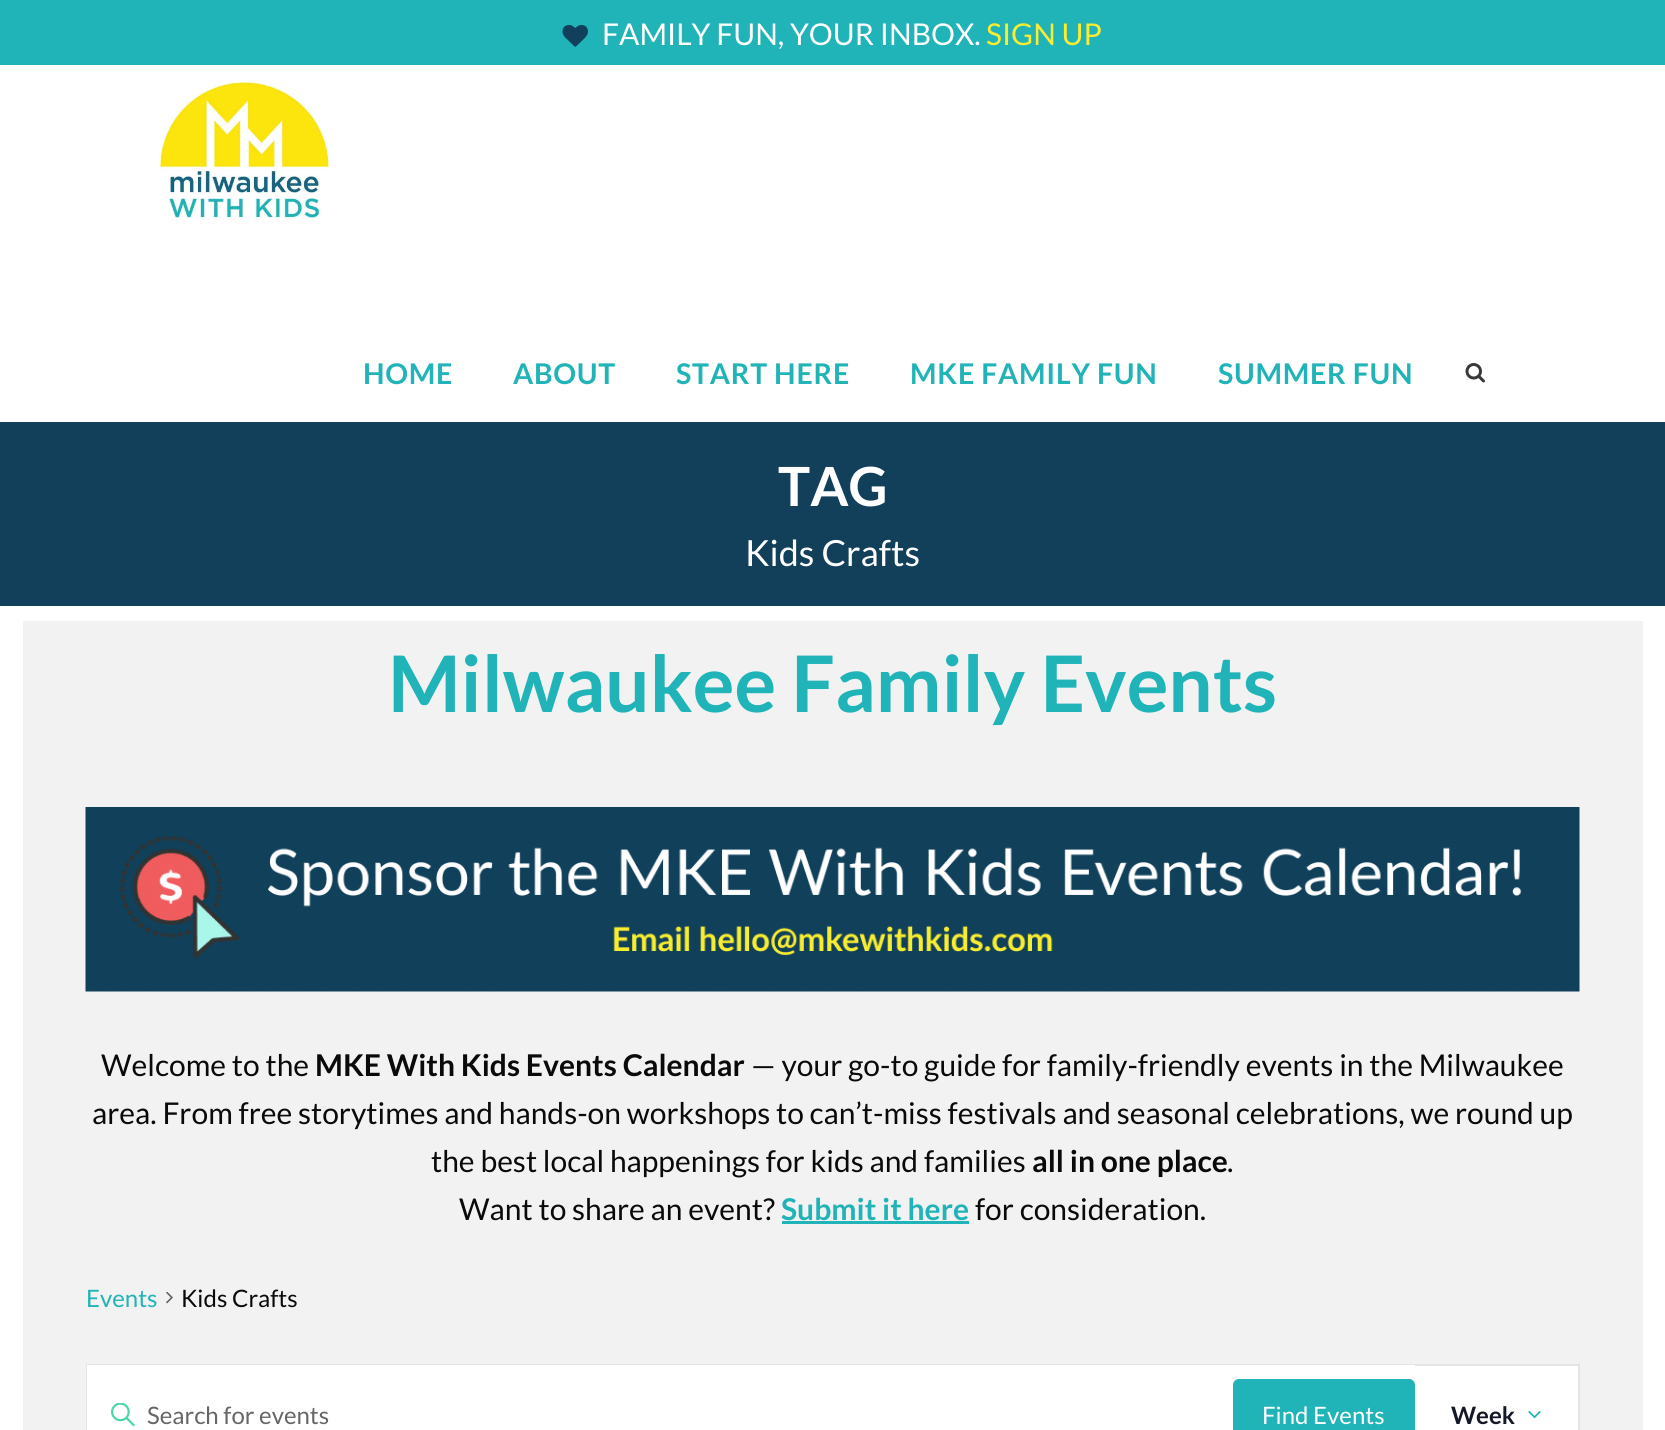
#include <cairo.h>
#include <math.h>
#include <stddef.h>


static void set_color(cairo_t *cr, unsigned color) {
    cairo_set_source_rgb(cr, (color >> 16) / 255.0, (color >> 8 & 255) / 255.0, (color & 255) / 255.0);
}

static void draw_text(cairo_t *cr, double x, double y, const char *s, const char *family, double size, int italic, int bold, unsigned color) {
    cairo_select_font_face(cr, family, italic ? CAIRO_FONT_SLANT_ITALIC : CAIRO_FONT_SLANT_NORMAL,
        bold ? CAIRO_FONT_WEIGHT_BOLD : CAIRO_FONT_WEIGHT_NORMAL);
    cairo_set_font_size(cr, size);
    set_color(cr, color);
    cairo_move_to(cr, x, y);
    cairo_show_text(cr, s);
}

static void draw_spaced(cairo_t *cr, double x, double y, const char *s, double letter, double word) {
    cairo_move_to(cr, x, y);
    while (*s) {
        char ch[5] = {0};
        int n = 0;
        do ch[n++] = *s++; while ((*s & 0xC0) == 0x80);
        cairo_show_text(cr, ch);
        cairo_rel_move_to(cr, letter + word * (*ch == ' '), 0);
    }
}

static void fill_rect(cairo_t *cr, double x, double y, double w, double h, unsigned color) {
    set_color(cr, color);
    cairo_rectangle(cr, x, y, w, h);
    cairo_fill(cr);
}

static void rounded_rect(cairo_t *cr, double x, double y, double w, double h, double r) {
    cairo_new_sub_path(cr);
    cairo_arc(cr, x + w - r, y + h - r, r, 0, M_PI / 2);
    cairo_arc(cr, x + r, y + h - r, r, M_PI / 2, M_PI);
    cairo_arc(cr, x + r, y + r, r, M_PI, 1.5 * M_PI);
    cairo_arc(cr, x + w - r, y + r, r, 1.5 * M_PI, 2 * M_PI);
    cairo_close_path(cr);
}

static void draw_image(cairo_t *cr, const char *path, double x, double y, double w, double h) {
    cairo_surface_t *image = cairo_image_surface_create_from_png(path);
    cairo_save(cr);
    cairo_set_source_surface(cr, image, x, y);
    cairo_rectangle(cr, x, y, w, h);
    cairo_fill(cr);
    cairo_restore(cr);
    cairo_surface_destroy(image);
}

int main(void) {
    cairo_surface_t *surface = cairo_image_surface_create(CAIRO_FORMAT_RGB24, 1665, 1430);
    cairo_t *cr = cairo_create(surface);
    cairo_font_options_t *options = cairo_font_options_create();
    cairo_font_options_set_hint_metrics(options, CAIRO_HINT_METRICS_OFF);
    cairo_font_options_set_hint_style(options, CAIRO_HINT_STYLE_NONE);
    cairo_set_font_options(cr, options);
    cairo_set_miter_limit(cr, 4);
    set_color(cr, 0xFFFFFF);
    cairo_paint(cr);
    fill_rect(cr, 0, 0, 1665, 65, 0x20B3B7);
    draw_image(cr, "assets/img1.png", 562, 25, 26, 22);
    draw_text(cr, 602, 45, "FAMILY FUN, YOUR INBOX.", "Lato", 30, 0, 0, 0xFFFFFF);
    draw_text(cr, 986, 45, "SIGN UP", "Lato", 30, 0, 0, 0xF9EC31);
    draw_image(cr, "assets/img2.png", 159, 79, 171, 142);
    cairo_select_font_face(cr, "Lato", CAIRO_FONT_SLANT_NORMAL, CAIRO_FONT_WEIGHT_BOLD);
    cairo_set_font_size(cr, 28.5);
    set_color(cr, 0x20B3B7);
    draw_spaced(cr, 363, 384, "HOME", 0.75, 0);
    draw_spaced(cr, 513, 384, "ABOUT", 0.75, 0);
    draw_spaced(cr, 676, 384, "START HERE", 0.75, 0);
    draw_spaced(cr, 910, 384, "MKE FAMILY FUN", 0.75, 0);
    draw_spaced(cr, 1218, 384, "SUMMER FUN", 0.75, 0);
    draw_image(cr, "assets/img3.png", 1465, 363, 20, 20);
    fill_rect(cr, 0, 422, 1665, 184, 0x12405A);
    draw_text(cr, 778, 506, "TAG", "Lato", 54, 0, 1, 0xFFFFFF);
    draw_text(cr, 745, 566, "Kids Crafts", "Lato", 36, 0, 0, 0xFFFFFF);
    fill_rect(cr, 23, 621, 1620, 809, 0xF2F2F2);
    draw_text(cr, 388, 712, "Milwaukee Family Events", "Lato", 78, 0, 1, 0x20B3B7);
    draw_image(cr, "assets/img4.png", 85, 807, 1495, 185);
    draw_text(cr, 101, 1076, "Welcome to the", "Lato", 30, 0, 0, 0x0A0A0A);
    draw_text(cr, 315, 1076, "MKE With Kids Events Calendar", "Lato", 30, 0, 1, 0x0A0A0A);
    draw_text(cr, 751, 1076, "— your go-to guide for family-friendly events in the Milwaukee", "Lato", 30, 0, 0, 0x0A0A0A);
    draw_text(cr, 92, 1124, "area. From free storytimes and hands-on workshops to can’t-miss festivals and seasonal celebrations, we round up", "Lato", 30, 0, 0, 0x0A0A0A);
    draw_text(cr, 431, 1172, "the best local happenings for kids and families", "Lato", 30, 0, 0, 0x0A0A0A);
    draw_text(cr, 1032, 1172, "all in one place", "Lato", 30, 0, 1, 0x0A0A0A);
    draw_text(cr, 1227, 1172, ".", "Lato", 30, 0, 0, 0x0A0A0A);
    draw_text(cr, 459, 1220, "Want to share an event?", "Lato", 30, 0, 0, 0x0A0A0A);
    draw_text(cr, 781, 1220, "Submit it here", "Lato", 30, 0, 1, 0x20B3B7);
    fill_rect(cr, 782, 1221, 187, 3, 0x20B3B7);
    draw_text(cr, 975, 1220, "for consideration.", "Lato", 30, 0, 0, 0x0A0A0A);
    draw_text(cr, 86, 1307, "Events", "Lato", 24, 0, 0, 0x20B3B7);
    draw_image(cr, "assets/img5.png", 166, 1292, 7, 12);
    draw_text(cr, 181, 1307, "Kids Crafts", "Lato", 24, 0, 0, 0x0A0A0A);
    fill_rect(cr, 1415, 1366, 163, 64, 0xFFFFFF);
    cairo_rectangle(cr, 87, 1365, 1492, 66);
    set_color(cr, 0xE4E4E4);
    cairo_stroke(cr);
    fill_rect(cr, 87, 1365, 1328, 65, 0xFFFFFF);
    draw_image(cr, "assets/img6.png", 111, 1403, 24, 24);
    draw_text(cr, 147, 1424, "Search for events", "Lato", 24, 0, 0, 0x666666);
    set_color(cr, 0x20B3B7);
    rounded_rect(cr, 1233, 1379, 182, 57, 6);
    cairo_fill(cr);
    draw_text(cr, 1262, 1424, "Find Events", "Lato", 24, 0, 0, 0xFFFFFF);
    draw_text(cr, 1451, 1424, "Week", "Lato", 24, 0, 1, 0x141827);
    draw_image(cr, "assets/img7.png", 1528, 1410, 13, 9);
    cairo_surface_write_to_png(surface, "output.png");
    cairo_font_options_destroy(options);
    cairo_destroy(cr);
    cairo_surface_destroy(surface);
    return 0;
}
